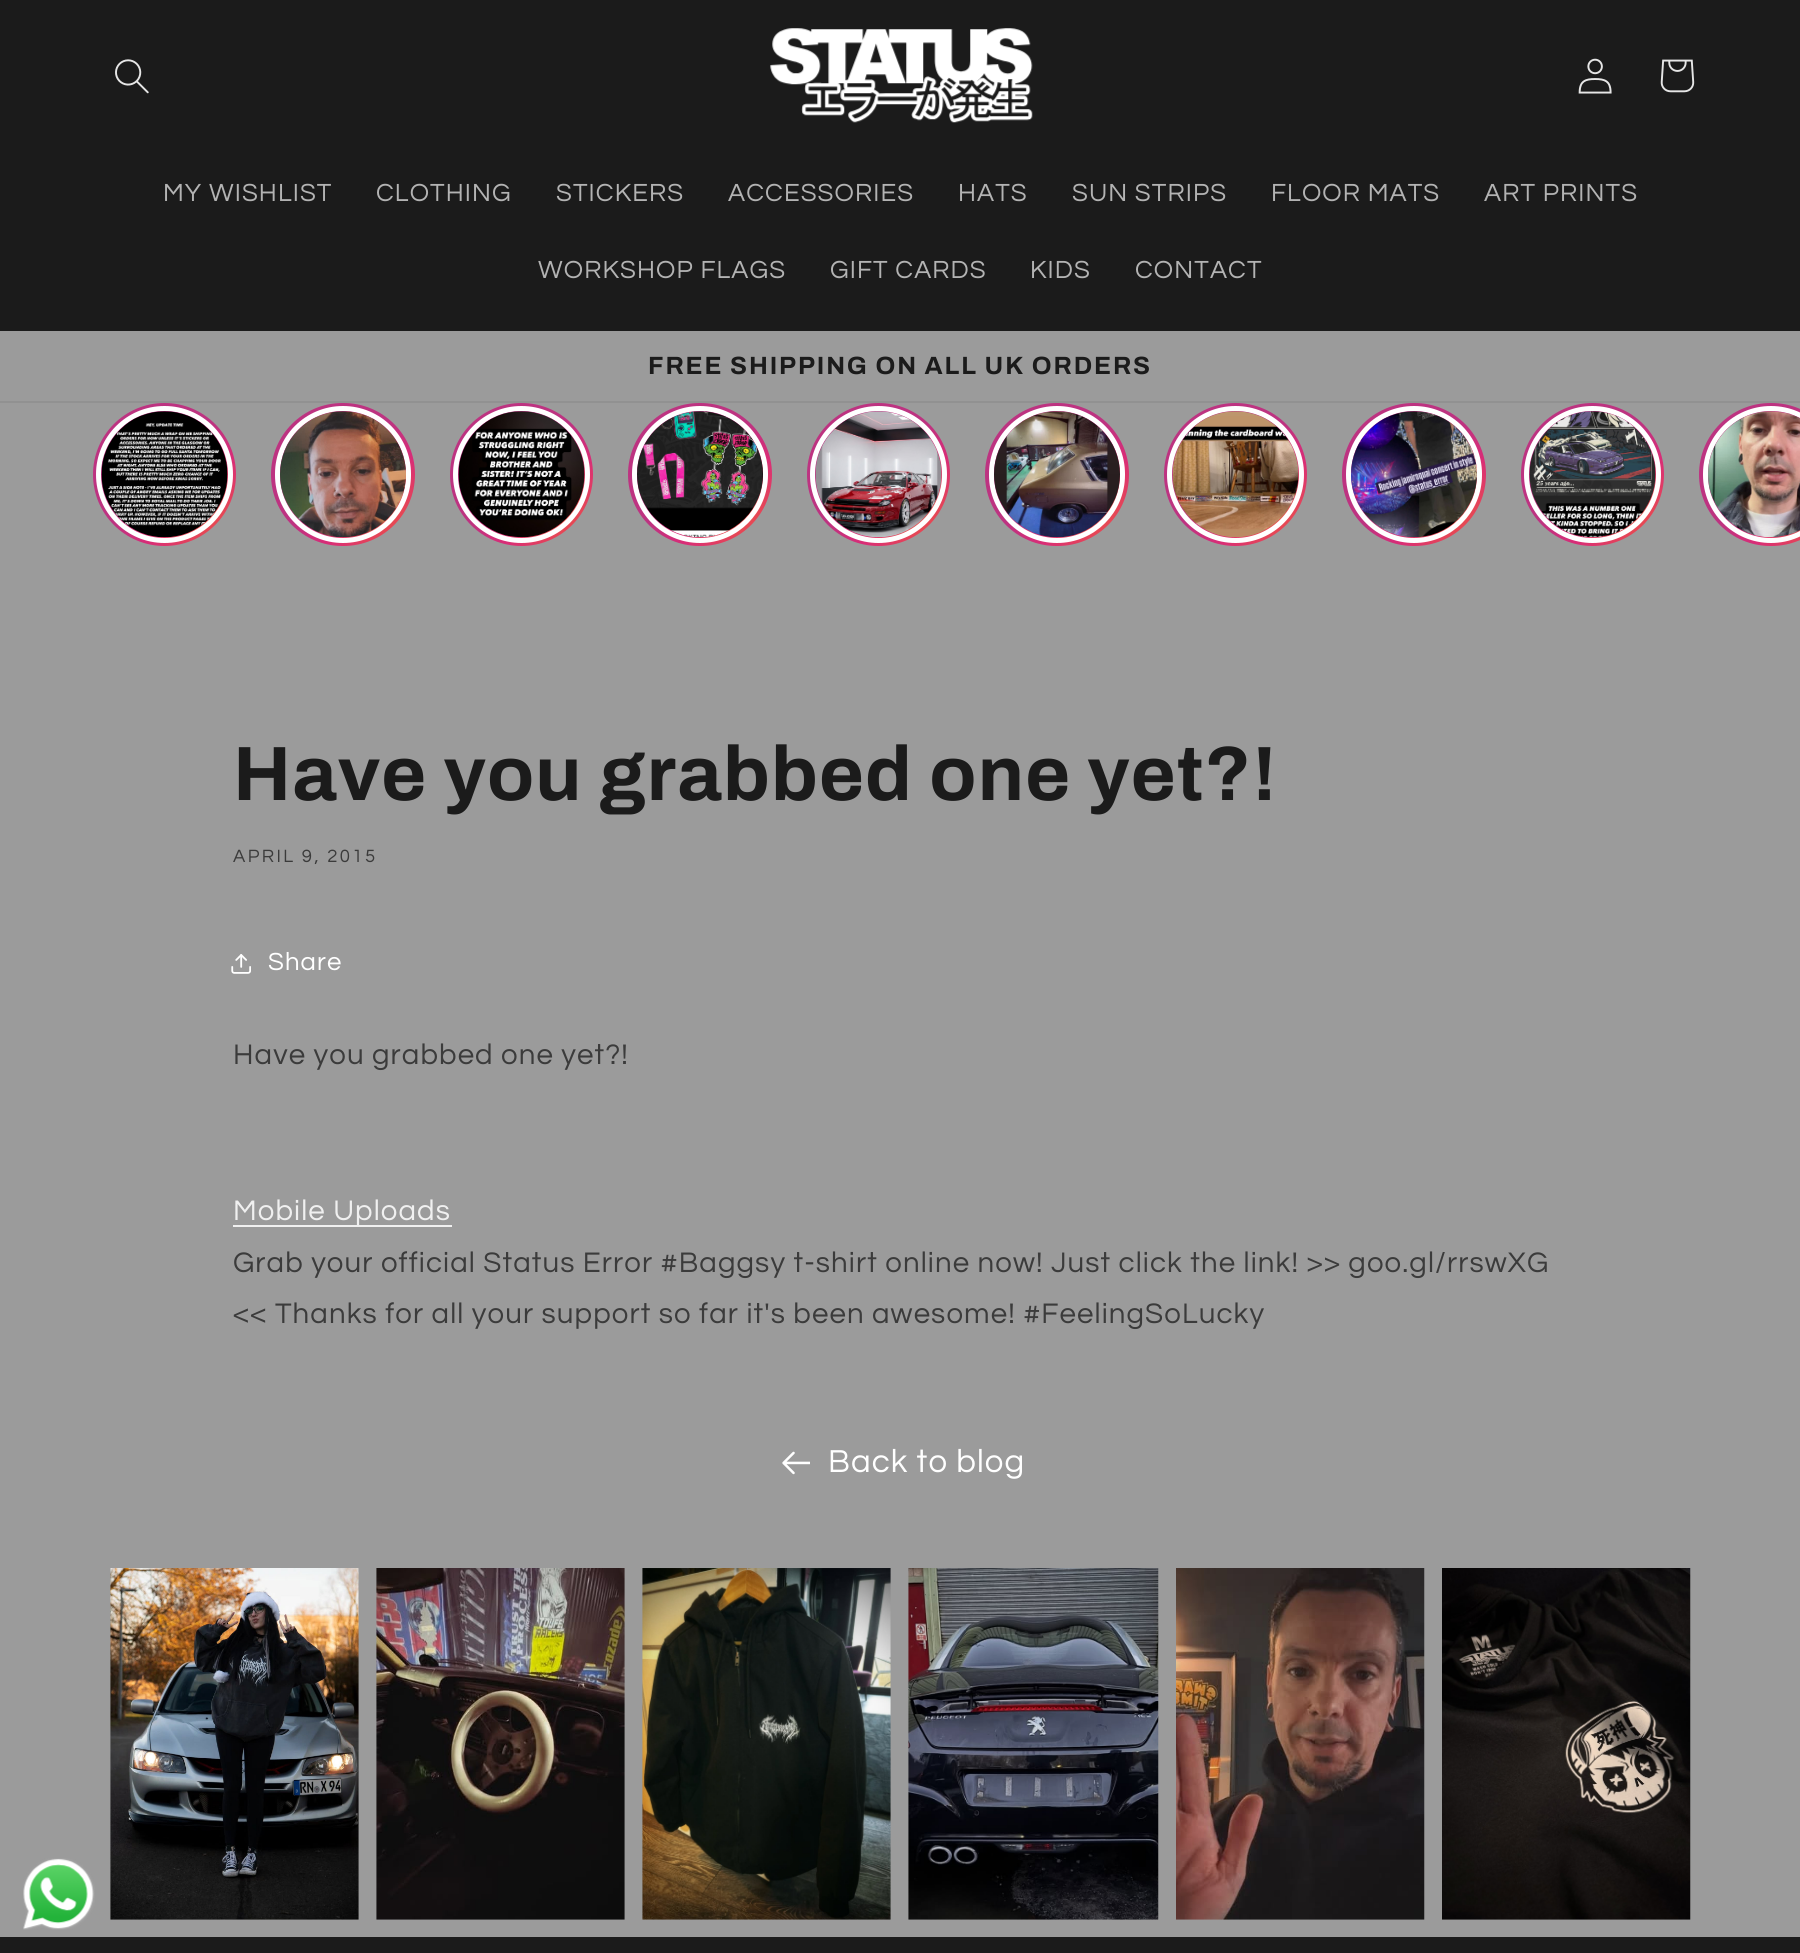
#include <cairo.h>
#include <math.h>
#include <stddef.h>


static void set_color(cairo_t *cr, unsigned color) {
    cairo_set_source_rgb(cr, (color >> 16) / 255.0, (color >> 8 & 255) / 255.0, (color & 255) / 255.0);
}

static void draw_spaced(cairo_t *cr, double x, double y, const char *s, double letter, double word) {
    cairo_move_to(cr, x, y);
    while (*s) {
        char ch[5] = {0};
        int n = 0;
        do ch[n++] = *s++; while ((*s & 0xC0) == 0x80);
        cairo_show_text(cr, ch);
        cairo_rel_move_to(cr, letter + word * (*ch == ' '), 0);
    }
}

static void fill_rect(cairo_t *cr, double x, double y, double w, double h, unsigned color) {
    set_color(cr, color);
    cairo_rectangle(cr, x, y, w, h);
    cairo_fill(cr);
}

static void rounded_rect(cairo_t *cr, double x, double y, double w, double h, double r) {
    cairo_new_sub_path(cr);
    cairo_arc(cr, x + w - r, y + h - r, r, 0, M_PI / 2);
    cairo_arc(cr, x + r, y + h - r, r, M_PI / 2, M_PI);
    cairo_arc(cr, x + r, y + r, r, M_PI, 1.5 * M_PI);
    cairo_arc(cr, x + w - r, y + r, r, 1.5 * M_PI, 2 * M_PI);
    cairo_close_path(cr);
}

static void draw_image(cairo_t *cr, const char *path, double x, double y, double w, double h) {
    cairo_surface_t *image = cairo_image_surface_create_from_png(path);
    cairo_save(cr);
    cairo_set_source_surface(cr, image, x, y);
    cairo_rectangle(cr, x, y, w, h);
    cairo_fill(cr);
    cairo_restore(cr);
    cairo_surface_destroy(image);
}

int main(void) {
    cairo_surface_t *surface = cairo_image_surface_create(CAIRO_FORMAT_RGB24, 1800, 1953);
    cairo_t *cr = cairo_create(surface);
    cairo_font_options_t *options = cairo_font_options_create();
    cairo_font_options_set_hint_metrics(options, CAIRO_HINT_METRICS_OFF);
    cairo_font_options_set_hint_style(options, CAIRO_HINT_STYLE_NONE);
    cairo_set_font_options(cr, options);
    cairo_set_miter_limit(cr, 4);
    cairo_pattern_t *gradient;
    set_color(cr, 0x9B9B9B);
    cairo_paint(cr);
    fill_rect(cr, 0, 0, 1800, 331, 0x1B1B1B);
    draw_image(cr, "assets/img1.png", 115, 59, 34, 35);
    draw_image(cr, "assets/img2.png", 770, 28, 263, 95);
    draw_image(cr, "assets/img3.png", 1578, 58, 34, 36);
    draw_image(cr, "assets/img4.png", 1660, 59, 35, 34);
    cairo_select_font_face(cr, "Questrial", CAIRO_FONT_SLANT_NORMAL, CAIRO_FONT_WEIGHT_NORMAL);
    cairo_set_font_size(cr, 25.75);
    set_color(cr, 0xB3B3B3);
    draw_spaced(cr, 163, 201, "MY WISHLIST", 1.1, 0);
    draw_spaced(cr, 376, 201, "CLOTHING", 1.1, 0);
    draw_spaced(cr, 556, 201, "STICKERS", 1.1, 0);
    draw_spaced(cr, 728, 201, "ACCESSORIES", 1.1, 0);
    draw_spaced(cr, 958, 201, "HATS", 1.1, 0);
    draw_spaced(cr, 1072, 201, "SUN STRIPS", 1.1, 0);
    draw_spaced(cr, 1271, 201, "FLOOR MATS", 1.1, 0);
    draw_spaced(cr, 1484, 201, "ART PRINTS", 1.1, 0);
    draw_spaced(cr, 538, 278, "WORKSHOP FLAGS", 1.1, 0);
    draw_spaced(cr, 830, 278, "GIFT CARDS", 1.1, 0);
    draw_spaced(cr, 1030, 278, "KIDS", 1.1, 0);
    draw_spaced(cr, 1135, 278, "CONTACT", 1.1, 0);
    fill_rect(cr, 0, 401, 1800, 2, 0x919191);
    cairo_select_font_face(cr, "Archivo", CAIRO_FONT_SLANT_NORMAL, CAIRO_FONT_WEIGHT_BOLD);
    cairo_set_font_size(cr, 25);
    set_color(cr, 0x1B1B1B);
    draw_spaced(cr, 648, 374, "FREE SHIPPING ON ALL UK ORDERS", 1.85, 0);
    gradient = cairo_pattern_create_radial(193, 503, 0, 193, 503, 142);
    cairo_pattern_add_color_stop_rgba(gradient, 0.08, 0.933, 0.345, 0.247, 1);
    cairo_pattern_add_color_stop_rgba(gradient, 0.42, 0.851, 0.176, 0.467, 1);
    cairo_pattern_add_color_stop_rgba(gradient, 0.58, 0.741, 0.2, 0.506, 1);
    cairo_set_source(cr, gradient);
    cairo_pattern_destroy(gradient);
    cairo_new_path(cr);
    cairo_arc(cr, 164.5, 474.5, 71.5, 0, 2 * M_PI);
    cairo_fill(cr);
    cairo_arc(cr, 164.5, 474.5, 66, 0, 2 * M_PI);
    set_color(cr, 0xFFFFFF);
    cairo_set_line_width(cr, 5);
    cairo_stroke(cr);
    draw_image(cr, "assets/img5.png", 101, 411, 127, 127);
    gradient = cairo_pattern_create_radial(372, 503, 0, 372, 503, 142);
    cairo_pattern_add_color_stop_rgba(gradient, 0.08, 0.933, 0.345, 0.247, 1);
    cairo_pattern_add_color_stop_rgba(gradient, 0.42, 0.851, 0.176, 0.467, 1);
    cairo_pattern_add_color_stop_rgba(gradient, 0.58, 0.741, 0.2, 0.506, 1);
    cairo_set_source(cr, gradient);
    cairo_pattern_destroy(gradient);
    rounded_rect(cr, 271, 403, 144, 143, 71.5);
    cairo_fill(cr);
    rounded_rect(cr, 277.5, 408.5, 131, 132, 65.5);
    set_color(cr, 0xFFFFFF);
    cairo_stroke(cr);
    draw_image(cr, "assets/img6.png", 280, 411, 126, 127);
    gradient = cairo_pattern_create_radial(550, 503, 0, 550, 503, 142);
    cairo_pattern_add_color_stop_rgba(gradient, 0.08, 0.933, 0.345, 0.247, 1);
    cairo_pattern_add_color_stop_rgba(gradient, 0.42, 0.851, 0.176, 0.467, 1);
    cairo_pattern_add_color_stop_rgba(gradient, 0.58, 0.741, 0.2, 0.506, 1);
    cairo_set_source(cr, gradient);
    cairo_pattern_destroy(gradient);
    cairo_arc(cr, 521.5, 474.5, 71.5, 0, 2 * M_PI);
    cairo_fill(cr);
    cairo_arc(cr, 521.5, 474.5, 66, 0, 2 * M_PI);
    set_color(cr, 0xFFFFFF);
    cairo_stroke(cr);
    draw_image(cr, "assets/img7.png", 458, 411, 127, 127);
    gradient = cairo_pattern_create_radial(729, 503, 0, 729, 503, 142);
    cairo_pattern_add_color_stop_rgba(gradient, 0.08, 0.933, 0.345, 0.247, 1);
    cairo_pattern_add_color_stop_rgba(gradient, 0.42, 0.851, 0.176, 0.467, 1);
    cairo_pattern_add_color_stop_rgba(gradient, 0.58, 0.741, 0.2, 0.506, 1);
    cairo_set_source(cr, gradient);
    cairo_pattern_destroy(gradient);
    rounded_rect(cr, 628, 403, 144, 143, 71.5);
    cairo_fill(cr);
    rounded_rect(cr, 634.5, 408.5, 131, 132, 65.5);
    set_color(cr, 0xFFFFFF);
    cairo_stroke(cr);
    draw_image(cr, "assets/img8.png", 637, 411, 126, 127);
    gradient = cairo_pattern_create_radial(907, 503, 0, 907, 503, 142);
    cairo_pattern_add_color_stop_rgba(gradient, 0.08, 0.933, 0.345, 0.247, 1);
    cairo_pattern_add_color_stop_rgba(gradient, 0.42, 0.851, 0.176, 0.467, 1);
    cairo_pattern_add_color_stop_rgba(gradient, 0.58, 0.741, 0.2, 0.506, 1);
    cairo_set_source(cr, gradient);
    cairo_pattern_destroy(gradient);
    cairo_arc(cr, 878.5, 474.5, 71.5, 0, 2 * M_PI);
    cairo_fill(cr);
    cairo_arc(cr, 878.5, 474.5, 66, 0, 2 * M_PI);
    set_color(cr, 0xFFFFFF);
    cairo_stroke(cr);
    draw_image(cr, "assets/img9.png", 815, 411, 127, 127);
    gradient = cairo_pattern_create_radial(1086, 503, 0, 1086, 503, 142);
    cairo_pattern_add_color_stop_rgba(gradient, 0.08, 0.933, 0.345, 0.247, 1);
    cairo_pattern_add_color_stop_rgba(gradient, 0.42, 0.851, 0.176, 0.467, 1);
    cairo_pattern_add_color_stop_rgba(gradient, 0.58, 0.741, 0.2, 0.506, 1);
    cairo_set_source(cr, gradient);
    cairo_pattern_destroy(gradient);
    rounded_rect(cr, 985, 403, 144, 143, 71.5);
    cairo_fill(cr);
    rounded_rect(cr, 991.5, 408.5, 131, 132, 65.5);
    set_color(cr, 0xFFFFFF);
    cairo_stroke(cr);
    draw_image(cr, "assets/img10.png", 994, 411, 126, 127);
    gradient = cairo_pattern_create_radial(1264, 503, 0, 1264, 503, 142);
    cairo_pattern_add_color_stop_rgba(gradient, 0.08, 0.933, 0.345, 0.247, 1);
    cairo_pattern_add_color_stop_rgba(gradient, 0.42, 0.851, 0.176, 0.467, 1);
    cairo_pattern_add_color_stop_rgba(gradient, 0.58, 0.741, 0.2, 0.506, 1);
    cairo_set_source(cr, gradient);
    cairo_pattern_destroy(gradient);
    cairo_arc(cr, 1235.5, 474.5, 71.5, 0, 2 * M_PI);
    cairo_fill(cr);
    cairo_arc(cr, 1235.5, 474.5, 66, 0, 2 * M_PI);
    set_color(cr, 0xFFFFFF);
    cairo_stroke(cr);
    draw_image(cr, "assets/img11.png", 1172, 411, 127, 127);
    gradient = cairo_pattern_create_radial(1443, 503, 0, 1443, 503, 142);
    cairo_pattern_add_color_stop_rgba(gradient, 0.08, 0.933, 0.345, 0.247, 1);
    cairo_pattern_add_color_stop_rgba(gradient, 0.42, 0.851, 0.176, 0.467, 1);
    cairo_pattern_add_color_stop_rgba(gradient, 0.58, 0.741, 0.2, 0.506, 1);
    cairo_set_source(cr, gradient);
    cairo_pattern_destroy(gradient);
    rounded_rect(cr, 1342, 403, 144, 143, 71.5);
    cairo_fill(cr);
    rounded_rect(cr, 1348.5, 408.5, 131, 132, 65.5);
    set_color(cr, 0xFFFFFF);
    cairo_stroke(cr);
    draw_image(cr, "assets/img12.png", 1351, 411, 126, 127);
    gradient = cairo_pattern_create_radial(1621, 503, 0, 1621, 503, 142);
    cairo_pattern_add_color_stop_rgba(gradient, 0.08, 0.933, 0.345, 0.247, 1);
    cairo_pattern_add_color_stop_rgba(gradient, 0.42, 0.851, 0.176, 0.467, 1);
    cairo_pattern_add_color_stop_rgba(gradient, 0.58, 0.741, 0.2, 0.506, 1);
    cairo_set_source(cr, gradient);
    cairo_pattern_destroy(gradient);
    cairo_arc(cr, 1592.5, 474.5, 71.5, 0, 2 * M_PI);
    cairo_fill(cr);
    cairo_arc(cr, 1592.5, 474.5, 66, 0, 2 * M_PI);
    set_color(cr, 0xFFFFFF);
    cairo_stroke(cr);
    draw_image(cr, "assets/img13.png", 1529, 411, 127, 127);
    gradient = cairo_pattern_create_radial(1800, 503, 0, 1800, 503, 142);
    cairo_pattern_add_color_stop_rgba(gradient, 0.08, 0.933, 0.345, 0.247, 1);
    cairo_pattern_add_color_stop_rgba(gradient, 0.42, 0.851, 0.176, 0.467, 1);
    cairo_pattern_add_color_stop_rgba(gradient, 0.58, 0.741, 0.2, 0.506, 1);
    cairo_set_source(cr, gradient);
    cairo_pattern_destroy(gradient);
    rounded_rect(cr, 1699, 403, 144, 143, 71.5);
    cairo_fill(cr);
    rounded_rect(cr, 1705.5, 408.5, 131, 132, 65.5);
    set_color(cr, 0xFFFFFF);
    cairo_stroke(cr);
    draw_image(cr, "assets/img14.png", 1708, 411, 92, 127);
    cairo_set_font_size(cr, 77);
    set_color(cr, 0x1B1B1B);
    draw_spaced(cr, 233, 800, "Have you grabbed one yet?!", 1.15, 0);
    cairo_select_font_face(cr, "Questrial", CAIRO_FONT_SLANT_NORMAL, CAIRO_FONT_WEIGHT_NORMAL);
    cairo_set_font_size(cr, 18.5);
    set_color(cr, 0x3B3B3B);
    draw_spaced(cr, 233, 862, "APRIL 9, 2015", 2.4, 0);
    draw_image(cr, "assets/img15.png", 231, 954, 20, 20);
    cairo_set_font_size(cr, 25.75);
    set_color(cr, 0xFFFFFF);
    draw_spaced(cr, 268, 970, "Share", 1.1, 0);
    cairo_set_font_size(cr, 29.4);
    set_color(cr, 0x3B3B3B);
    draw_spaced(cr, 233, 1064, "Have you grabbed one yet?!", 1.1, 0);
    fill_rect(cr, 233, 1225, 219, 2, 0xF0F0F0);
    draw_spaced(cr, 233, 1220, "Mobile Uploads", 1.1, 0);
    set_color(cr, 0x3B3B3B);
    draw_spaced(cr, 233, 1272, "Grab your official Status Error #Baggsy t-shirt online now! Just click the link! >> goo.gl/rrswXG", 1.1, 0);
    draw_spaced(cr, 233, 1323, "<< Thanks for all your support so far it's been awesome! #FeelingSoLucky", 1.1, 0);
    draw_image(cr, "assets/img16.png", 782, 1451, 28, 24);
    cairo_set_font_size(cr, 33);
    set_color(cr, 0xFFFFFF);
    draw_spaced(cr, 828, 1472, "Back to blog", 1.1, 0);
    draw_image(cr, "assets/img17.png", 23, 1858, 72, 72);
    draw_image(cr, "assets/img18.png", 110, 1568, 249, 352);
    draw_image(cr, "assets/img19.png", 376, 1568, 249, 352);
    draw_image(cr, "assets/img20.png", 642, 1568, 249, 352);
    draw_image(cr, "assets/img21.png", 908, 1568, 251, 352);
    draw_image(cr, "assets/img22.png", 1176, 1568, 249, 352);
    draw_image(cr, "assets/img23.png", 1442, 1568, 249, 352);
    fill_rect(cr, 0, 1937, 1800, 16, 0x1B1B1B);
    cairo_surface_write_to_png(surface, "output.png");
    cairo_font_options_destroy(options);
    cairo_destroy(cr);
    cairo_surface_destroy(surface);
    return 0;
}
